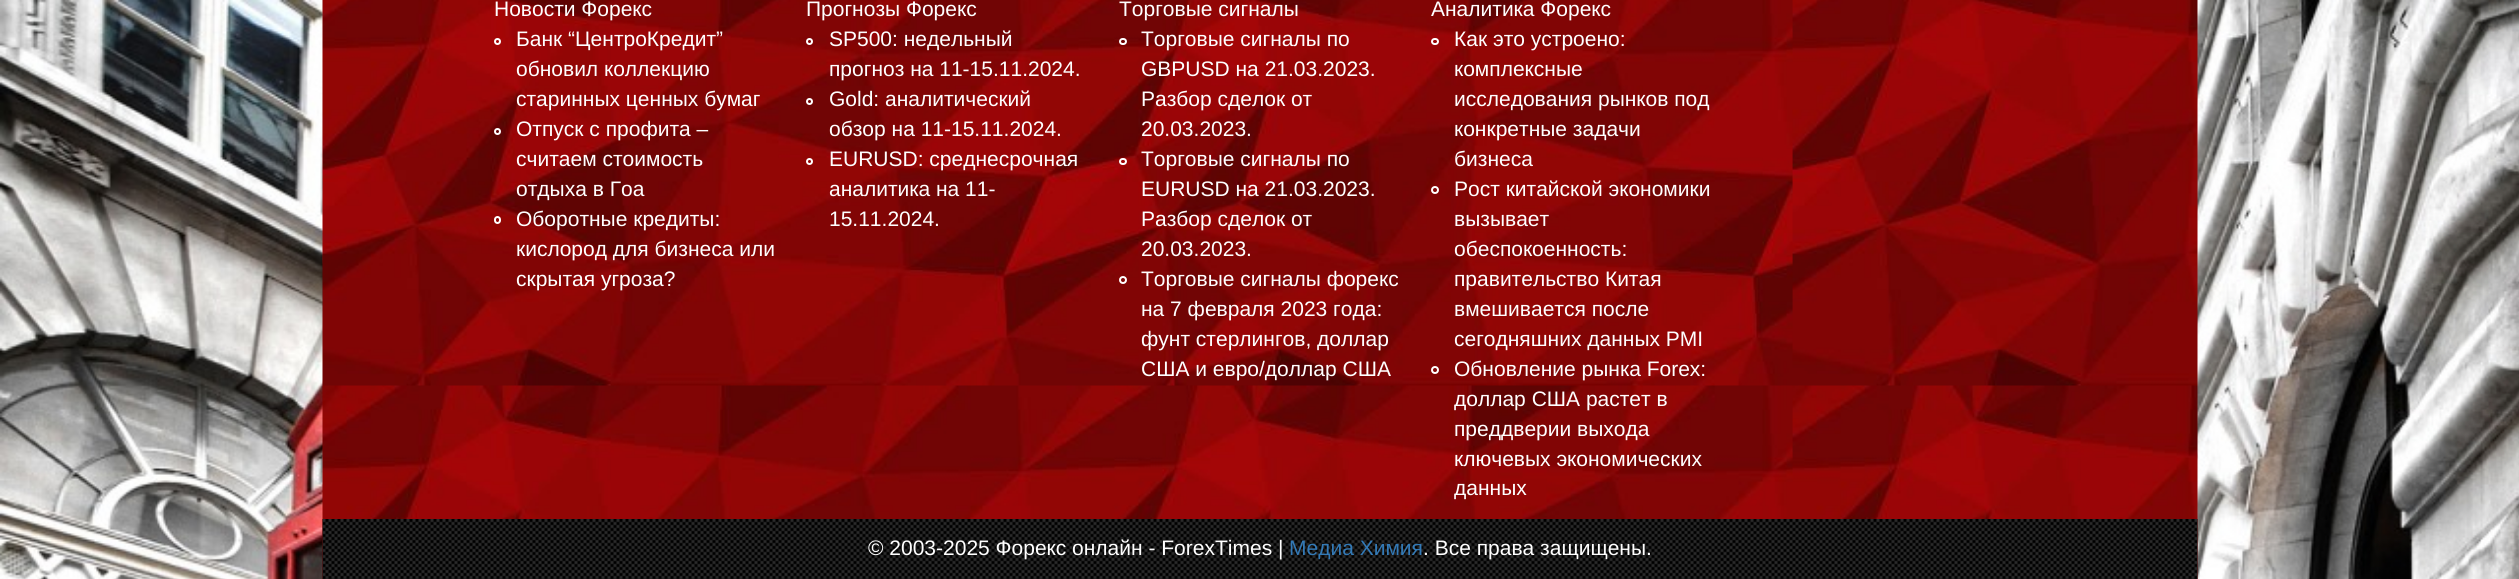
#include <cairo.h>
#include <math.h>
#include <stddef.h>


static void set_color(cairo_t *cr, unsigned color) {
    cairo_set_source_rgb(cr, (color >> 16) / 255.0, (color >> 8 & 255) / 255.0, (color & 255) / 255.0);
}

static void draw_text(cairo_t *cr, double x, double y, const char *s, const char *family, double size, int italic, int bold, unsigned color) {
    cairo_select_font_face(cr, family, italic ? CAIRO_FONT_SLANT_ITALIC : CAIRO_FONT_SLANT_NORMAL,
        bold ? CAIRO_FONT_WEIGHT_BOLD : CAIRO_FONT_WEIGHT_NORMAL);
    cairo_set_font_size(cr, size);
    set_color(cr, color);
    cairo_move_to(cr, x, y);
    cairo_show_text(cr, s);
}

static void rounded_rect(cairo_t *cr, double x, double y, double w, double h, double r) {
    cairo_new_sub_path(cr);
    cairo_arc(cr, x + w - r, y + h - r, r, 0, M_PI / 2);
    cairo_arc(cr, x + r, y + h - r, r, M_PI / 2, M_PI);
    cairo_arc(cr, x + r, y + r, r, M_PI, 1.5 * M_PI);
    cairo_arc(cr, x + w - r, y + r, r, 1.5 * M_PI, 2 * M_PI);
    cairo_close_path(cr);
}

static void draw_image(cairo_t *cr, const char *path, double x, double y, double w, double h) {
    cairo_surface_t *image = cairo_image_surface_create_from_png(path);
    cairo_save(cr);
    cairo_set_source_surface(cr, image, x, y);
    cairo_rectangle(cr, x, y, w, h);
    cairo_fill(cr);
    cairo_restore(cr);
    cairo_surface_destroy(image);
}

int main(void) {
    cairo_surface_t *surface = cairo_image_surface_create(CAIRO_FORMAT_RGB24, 2519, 579);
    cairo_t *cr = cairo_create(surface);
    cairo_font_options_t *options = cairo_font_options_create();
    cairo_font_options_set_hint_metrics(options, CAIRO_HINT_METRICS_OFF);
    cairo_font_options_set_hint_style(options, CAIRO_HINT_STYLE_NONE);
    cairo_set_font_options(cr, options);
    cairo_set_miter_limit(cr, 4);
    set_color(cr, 0xFFFFFF);
    cairo_paint(cr);
    draw_image(cr, "assets/img1.png", 0, 0, 2519, 579);
    draw_image(cr, "assets/img2.png", 322, 0, 1876, 579);
    draw_text(cr, 494, 16, "Новости Форекс", "Liberation Sans", 21, 0, 0, 0xFFFFFF);
    cairo_new_path(cr);
    cairo_arc(cr, 497.5, 41.5, 2.5, 0, 2 * M_PI);
    cairo_stroke(cr);
    draw_text(cr, 516, 46, "Банк “ЦентроКредит”", "Liberation Sans", 21, 0, 0, 0xFFFFFF);
    draw_text(cr, 516, 76, "обновил коллекцию", "Liberation Sans", 21, 0, 0, 0xFFFFFF);
    draw_text(cr, 516, 106, "старинных ценных бумаг", "Liberation Sans", 21, 0, 0, 0xFFFFFF);
    cairo_new_path(cr);
    cairo_arc(cr, 497.5, 131.5, 2.5, 0, 2 * M_PI);
    cairo_stroke(cr);
    draw_text(cr, 516, 136, "Отпуск с профита –", "Liberation Sans", 21, 0, 0, 0xFFFFFF);
    draw_text(cr, 516, 166, "считаем стоимость", "Liberation Sans", 21, 0, 0, 0xFFFFFF);
    draw_text(cr, 516, 196, "отдыха в Гоа", "Liberation Sans", 21, 0, 0, 0xFFFFFF);
    rounded_rect(cr, 495, 217, 5, 6, 2.5);
    cairo_stroke(cr);
    draw_text(cr, 516, 226, "Оборотные кредиты:", "Liberation Sans", 21, 0, 0, 0xFFFFFF);
    draw_text(cr, 516, 256, "кислород для бизнеса или", "Liberation Sans", 21, 0, 0, 0xFFFFFF);
    draw_text(cr, 516, 286, "скрытая угроза?", "Liberation Sans", 21, 0, 0, 0xFFFFFF);
    draw_text(cr, 806, 16, "Прогнозы Форекс", "Liberation Sans", 21, 0, 0, 0xFFFFFF);
    cairo_new_path(cr);
    cairo_arc(cr, 809.5, 41.5, 2.5, 0, 2 * M_PI);
    cairo_stroke(cr);
    draw_text(cr, 829, 46, "SP500: недельный", "Liberation Sans", 21, 0, 0, 0xFFFFFF);
    draw_text(cr, 829, 76, "прогноз на 11-15.11.2024.", "Liberation Sans", 21, 0, 0, 0xFFFFFF);
    cairo_new_path(cr);
    cairo_arc(cr, 809.5, 101.5, 2.5, 0, 2 * M_PI);
    cairo_stroke(cr);
    draw_text(cr, 829, 106, "Gold: аналитический", "Liberation Sans", 21, 0, 0, 0xFFFFFF);
    draw_text(cr, 829, 136, "обзор на 11-15.11.2024.", "Liberation Sans", 21, 0, 0, 0xFFFFFF);
    cairo_new_path(cr);
    cairo_arc(cr, 809.5, 161.5, 2.5, 0, 2 * M_PI);
    cairo_stroke(cr);
    draw_text(cr, 829, 166, "EURUSD: среднесрочная", "Liberation Sans", 21, 0, 0, 0xFFFFFF);
    draw_text(cr, 829, 196, "аналитика на 11-", "Liberation Sans", 21, 0, 0, 0xFFFFFF);
    draw_text(cr, 829, 226, "15.11.2024.", "Liberation Sans", 21, 0, 0, 0xFFFFFF);
    draw_text(cr, 1119, 16, "Торговые сигналы", "Liberation Sans", 21, 0, 0, 0xFFFFFF);
    rounded_rect(cr, 1120, 39, 6, 5, 2.5);
    cairo_stroke(cr);
    draw_text(cr, 1141, 46, "Торговые сигналы по", "Liberation Sans", 21, 0, 0, 0xFFFFFF);
    draw_text(cr, 1141, 76, "GBPUSD на 21.03.2023.", "Liberation Sans", 21, 0, 0, 0xFFFFFF);
    draw_text(cr, 1141, 106, "Разбор сделок от", "Liberation Sans", 21, 0, 0, 0xFFFFFF);
    draw_text(cr, 1141, 136, "20.03.2023.", "Liberation Sans", 21, 0, 0, 0xFFFFFF);
    rounded_rect(cr, 1120, 159, 6, 5, 2.5);
    cairo_stroke(cr);
    draw_text(cr, 1141, 166, "Торговые сигналы по", "Liberation Sans", 21, 0, 0, 0xFFFFFF);
    draw_text(cr, 1141, 196, "EURUSD на 21.03.2023.", "Liberation Sans", 21, 0, 0, 0xFFFFFF);
    draw_text(cr, 1141, 226, "Разбор сделок от", "Liberation Sans", 21, 0, 0, 0xFFFFFF);
    draw_text(cr, 1141, 256, "20.03.2023.", "Liberation Sans", 21, 0, 0, 0xFFFFFF);
    cairo_new_path(cr);
    cairo_arc(cr, 1123, 280, 3, 0, 2 * M_PI);
    cairo_stroke(cr);
    draw_text(cr, 1141, 286, "Торговые сигналы форекс", "Liberation Sans", 21, 0, 0, 0xFFFFFF);
    draw_text(cr, 1141, 316, "на 7 февраля 2023 года:", "Liberation Sans", 21, 0, 0, 0xFFFFFF);
    draw_text(cr, 1141, 346, "фунт стерлингов, доллар", "Liberation Sans", 21, 0, 0, 0xFFFFFF);
    draw_text(cr, 1141, 376, "США и евро/доллар США", "Liberation Sans", 21, 0, 0, 0xFFFFFF);
    draw_text(cr, 1431, 16, "Аналитика Форекс", "Liberation Sans", 21, 0, 0, 0xFFFFFF);
    rounded_rect(cr, 1432, 39, 6, 5, 2.5);
    cairo_stroke(cr);
    draw_text(cr, 1454, 46, "Как это устроено:", "Liberation Sans", 21, 0, 0, 0xFFFFFF);
    draw_text(cr, 1454, 76, "комплексные", "Liberation Sans", 21, 0, 0, 0xFFFFFF);
    draw_text(cr, 1454, 106, "исследования рынков под", "Liberation Sans", 21, 0, 0, 0xFFFFFF);
    draw_text(cr, 1454, 136, "конкретные задачи", "Liberation Sans", 21, 0, 0, 0xFFFFFF);
    draw_text(cr, 1454, 166, "бизнеса", "Liberation Sans", 21, 0, 0, 0xFFFFFF);
    cairo_new_path(cr);
    cairo_arc(cr, 1435, 190, 3, 0, 2 * M_PI);
    cairo_stroke(cr);
    draw_text(cr, 1454, 196, "Рост китайской экономики", "Liberation Sans", 21, 0, 0, 0xFFFFFF);
    draw_text(cr, 1454, 226, "вызывает", "Liberation Sans", 21, 0, 0, 0xFFFFFF);
    draw_text(cr, 1454, 256, "обеспокоенность:", "Liberation Sans", 21, 0, 0, 0xFFFFFF);
    draw_text(cr, 1454, 286, "правительство Китая", "Liberation Sans", 21, 0, 0, 0xFFFFFF);
    draw_text(cr, 1454, 316, "вмешивается после", "Liberation Sans", 21, 0, 0, 0xFFFFFF);
    draw_text(cr, 1454, 346, "сегодняшних данных PMI", "Liberation Sans", 21, 0, 0, 0xFFFFFF);
    cairo_new_path(cr);
    cairo_arc(cr, 1435, 370, 3, 0, 2 * M_PI);
    cairo_stroke(cr);
    draw_text(cr, 1454, 376, "Обновление рынка Forex:", "Liberation Sans", 21, 0, 0, 0xFFFFFF);
    draw_text(cr, 1454, 406, "доллар США растет в", "Liberation Sans", 21, 0, 0, 0xFFFFFF);
    draw_text(cr, 1454, 436, "преддверии выхода", "Liberation Sans", 21, 0, 0, 0xFFFFFF);
    draw_text(cr, 1454, 466, "ключевых экономических", "Liberation Sans", 21, 0, 0, 0xFFFFFF);
    draw_text(cr, 1454, 495, "данных", "Liberation Sans", 21, 0, 0, 0xFFFFFF);
    draw_image(cr, "assets/img3.png", 322, 519, 1876, 60);
    draw_text(cr, 868, 555, "© 2003-2025 Форекс онлайн - ForexTimes |", "Liberation Sans", 21, 0, 0, 0xFFFFFF);
    draw_text(cr, 1289, 555, "Медиа Химия", "Liberation Sans", 21, 0, 0, 0x337AB7);
    draw_text(cr, 1423, 555, ". Все права защищены.", "Liberation Sans", 21, 0, 0, 0xFFFFFF);
    cairo_surface_write_to_png(surface, "output.png");
    cairo_font_options_destroy(options);
    cairo_destroy(cr);
    cairo_surface_destroy(surface);
    return 0;
}
